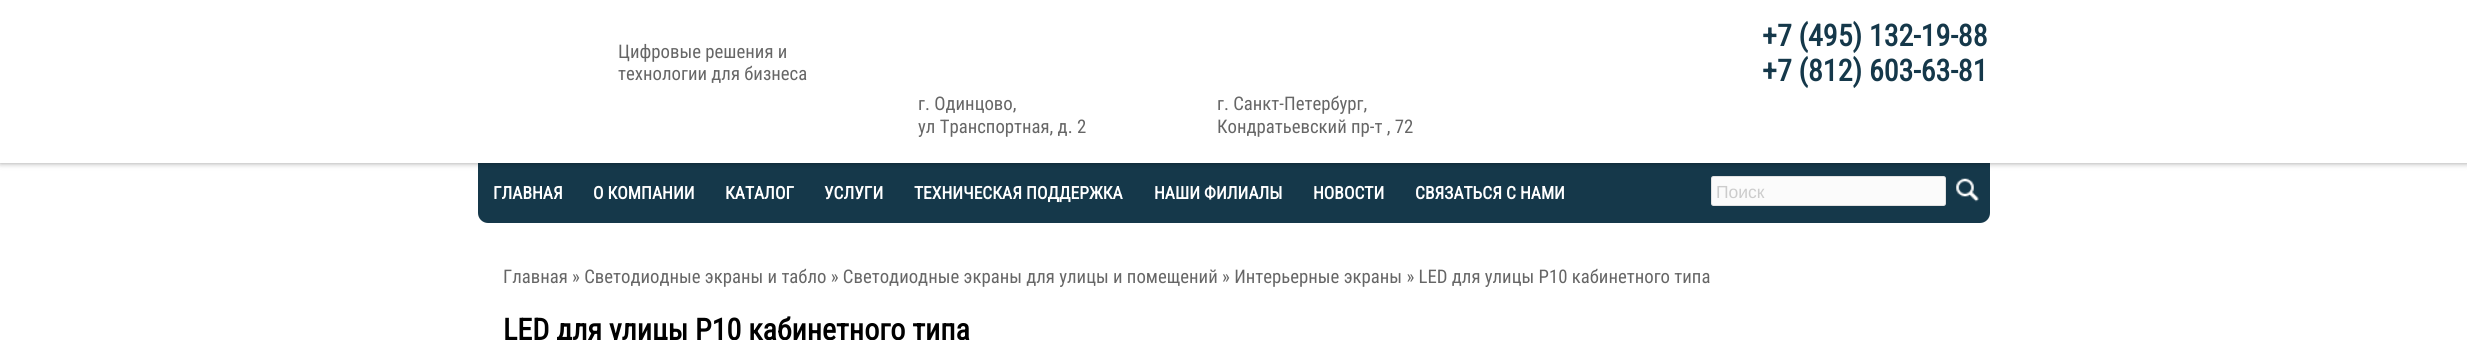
#include <cairo.h>
#include <math.h>
#include <stddef.h>


static void set_color(cairo_t *cr, unsigned color) {
    cairo_set_source_rgb(cr, (color >> 16) / 255.0, (color >> 8 & 255) / 255.0, (color & 255) / 255.0);
}

static void draw_text(cairo_t *cr, double x, double y, const char *s, const char *family, double size, int italic, int bold, unsigned color) {
    cairo_select_font_face(cr, family, italic ? CAIRO_FONT_SLANT_ITALIC : CAIRO_FONT_SLANT_NORMAL,
        bold ? CAIRO_FONT_WEIGHT_BOLD : CAIRO_FONT_WEIGHT_NORMAL);
    cairo_set_font_size(cr, size);
    set_color(cr, color);
    cairo_move_to(cr, x, y);
    cairo_show_text(cr, s);
}

static void rounded_rect(cairo_t *cr, double x, double y, double w, double h, double r) {
    cairo_new_sub_path(cr);
    cairo_arc(cr, x + w - r, y + h - r, r, 0, M_PI / 2);
    cairo_arc(cr, x + r, y + h - r, r, M_PI / 2, M_PI);
    cairo_arc(cr, x + r, y + r, r, M_PI, 1.5 * M_PI);
    cairo_arc(cr, x + w - r, y + r, r, 1.5 * M_PI, 2 * M_PI);
    cairo_close_path(cr);
}

static void draw_shadow(cairo_t *cr, double x, double y, double w, double h, double r, double blur, double alpha) {
    cairo_push_group_with_content(cr, CAIRO_CONTENT_ALPHA);
    cairo_set_operator(cr, CAIRO_OPERATOR_SOURCE);
    for (int i = 15; i >= -15 && fmin(w, h) + blur * i / 3 > 0; i -= 2) {
        double e = blur * i / 6;
        cairo_set_source_rgba(cr, 0, 0, 0, alpha * erfc((i - 1) / 8.5) / 2);
        rounded_rect(cr, x - e, y - e, w + 2 * e, h + 2 * e, fmax(0, fmin(r + e + blur * .6, fmin(w, h) / 2 + e)));
        cairo_fill(cr);
    }
    cairo_pattern_t *soft = cairo_pop_group(cr);
    cairo_mask(cr, soft);
    cairo_pattern_destroy(soft);
}

static void draw_image(cairo_t *cr, const char *path, double x, double y, double w, double h) {
    cairo_surface_t *image = cairo_image_surface_create_from_png(path);
    cairo_save(cr);
    cairo_set_source_surface(cr, image, x, y);
    cairo_rectangle(cr, x, y, w, h);
    cairo_fill(cr);
    cairo_restore(cr);
    cairo_surface_destroy(image);
}

int main(void) {
    cairo_surface_t *surface = cairo_image_surface_create(CAIRO_FORMAT_RGB24, 2467, 340);
    cairo_t *cr = cairo_create(surface);
    cairo_font_options_t *options = cairo_font_options_create();
    cairo_font_options_set_hint_metrics(options, CAIRO_HINT_METRICS_OFF);
    cairo_font_options_set_hint_style(options, CAIRO_HINT_STYLE_NONE);
    cairo_set_font_options(cr, options);
    cairo_set_miter_limit(cr, 4);
    set_color(cr, 0xFFFFFF);
    cairo_paint(cr);
    set_color(cr, 0x15384A);
    cairo_new_path(cr);
    cairo_move_to(cr, 478, 163);
    cairo_line_to(cr, 1990, 163);
    cairo_line_to(cr, 1990, 213);
    cairo_curve_to(cr, 1990, 218.5, 1985.5, 223, 1980, 223);
    cairo_line_to(cr, 488, 223);
    cairo_curve_to(cr, 482.5, 223, 478, 218.5, 478, 213);
    cairo_close_path(cr);
    cairo_fill(cr);
    cairo_save(cr);
    cairo_set_fill_rule(cr, CAIRO_FILL_RULE_EVEN_ODD);
    cairo_new_path(cr);
    cairo_move_to(cr, 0, 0);
    cairo_line_to(cr, 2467, 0);
    cairo_line_to(cr, 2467, 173);
    cairo_line_to(cr, 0, 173);
    cairo_close_path(cr);
    cairo_move_to(cr, 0, 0);
    cairo_line_to(cr, 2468, 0);
    cairo_line_to(cr, 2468, 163);
    cairo_line_to(cr, 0, 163);
    cairo_close_path(cr);
    cairo_clip(cr);
    set_color(cr, 0x000000);
    draw_shadow(cr, 0, 0, 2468, 163, 0, 3, 0.4);
    cairo_restore(cr);
    draw_text(cr, 618, 58, "Цифровые решения и", "Roboto Condensed", 18.75, 0, 0, 0x666666);
    draw_text(cr, 618, 80, "технологии для бизнеса", "Roboto Condensed", 18.75, 0, 0, 0x666666);
    draw_text(cr, 918, 110, "г. Одинцово,", "Roboto Condensed", 18.75, 0, 0, 0x666666);
    draw_text(cr, 918, 133, "ул Транспортная, д. 2", "Roboto Condensed", 18.75, 0, 0, 0x666666);
    draw_text(cr, 1217, 110, "г. Санкт-Петербург,", "Roboto Condensed", 18.75, 0, 0, 0x666666);
    draw_text(cr, 1217, 133, "Кондратьевский пр-т , 72", "Roboto Condensed", 18.75, 0, 0, 0x666666);
    draw_text(cr, 1762, 46, "+7 (495) 132-19-88", "Roboto Condensed", 30, 0, 1, 0x15384A);
    draw_text(cr, 1762, 81, "+7 (812) 603-63-81", "Roboto Condensed", 30, 0, 1, 0x15384A);
    draw_text(cr, 493, 199, "ГЛАВНАЯ", "Roboto Condensed", 17.5, 0, 1, 0xFFFFFF);
    draw_text(cr, 593, 199, "О КОМПАНИИ", "Roboto Condensed", 17.5, 0, 1, 0xFFFFFF);
    draw_text(cr, 725, 199, "КАТАЛОГ", "Roboto Condensed", 17.5, 0, 1, 0xFFFFFF);
    draw_text(cr, 824, 199, "УСЛУГИ", "Roboto Condensed", 17.5, 0, 1, 0xFFFFFF);
    draw_text(cr, 914, 199, "ТЕХНИЧЕСКАЯ ПОДДЕРЖКА", "Roboto Condensed", 17.5, 0, 1, 0xFFFFFF);
    draw_text(cr, 1154, 199, "НАШИ ФИЛИАЛЫ", "Roboto Condensed", 17.5, 0, 1, 0xFFFFFF);
    draw_text(cr, 1313, 199, "НОВОСТИ", "Roboto Condensed", 17.5, 0, 1, 0xFFFFFF);
    draw_text(cr, 1415, 199, "СВЯЗАТЬСЯ С НАМИ", "Roboto Condensed", 17.5, 0, 1, 0xFFFFFF);
    set_color(cr, 0xFBFBFB);
    rounded_rect(cr, 1711, 176, 235, 30, 2.5);
    cairo_fill(cr);
    rounded_rect(cr, 1711.5, 176.5, 234, 29, 2);
    cairo_set_source_rgba(cr, 0, 0, 0, 0.1);
    cairo_set_line_width(cr, 1);
    cairo_stroke(cr);
    draw_text(cr, 1716, 198, "Поиск", "Liberation Sans", 17.5, 0, 0, 0xCCCCCC);
    draw_image(cr, "assets/img1.png", 1956, 178, 23, 24);
    draw_text(cr, 503, 283, "Главная » Светодиодные экраны и табло » Светодиодные экраны для улицы и помещений » Интерьерные экраны » LED для улицы P10 кабинетного типа", "Roboto Condensed", 18.75, 0, 0, 0x666666);
    draw_text(cr, 503, 340, "LED для улицы P10 кабинетного типа", "Roboto Condensed", 30, 0, 1, 0x000000);
    cairo_surface_write_to_png(surface, "output.png");
    cairo_font_options_destroy(options);
    cairo_destroy(cr);
    cairo_surface_destroy(surface);
    return 0;
}
